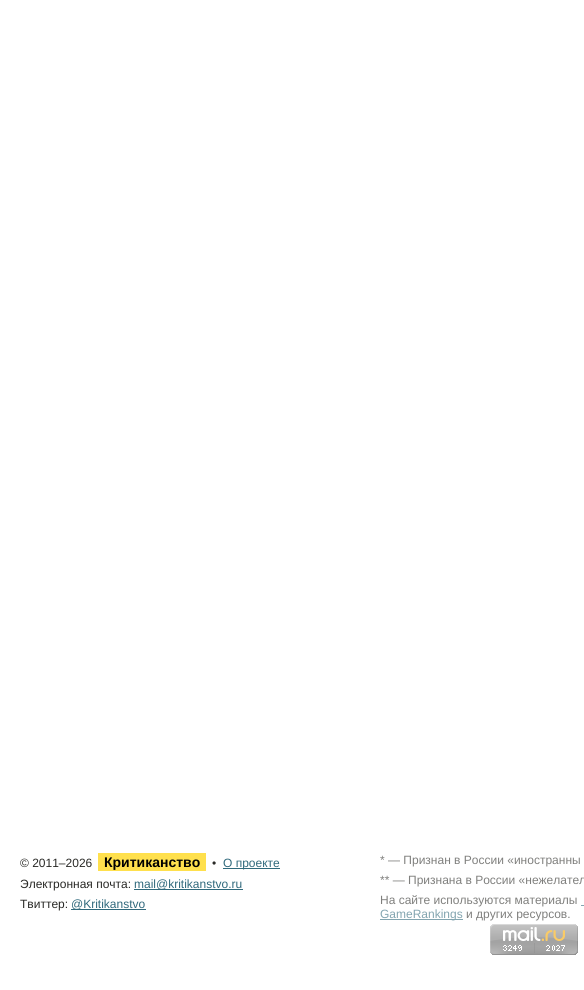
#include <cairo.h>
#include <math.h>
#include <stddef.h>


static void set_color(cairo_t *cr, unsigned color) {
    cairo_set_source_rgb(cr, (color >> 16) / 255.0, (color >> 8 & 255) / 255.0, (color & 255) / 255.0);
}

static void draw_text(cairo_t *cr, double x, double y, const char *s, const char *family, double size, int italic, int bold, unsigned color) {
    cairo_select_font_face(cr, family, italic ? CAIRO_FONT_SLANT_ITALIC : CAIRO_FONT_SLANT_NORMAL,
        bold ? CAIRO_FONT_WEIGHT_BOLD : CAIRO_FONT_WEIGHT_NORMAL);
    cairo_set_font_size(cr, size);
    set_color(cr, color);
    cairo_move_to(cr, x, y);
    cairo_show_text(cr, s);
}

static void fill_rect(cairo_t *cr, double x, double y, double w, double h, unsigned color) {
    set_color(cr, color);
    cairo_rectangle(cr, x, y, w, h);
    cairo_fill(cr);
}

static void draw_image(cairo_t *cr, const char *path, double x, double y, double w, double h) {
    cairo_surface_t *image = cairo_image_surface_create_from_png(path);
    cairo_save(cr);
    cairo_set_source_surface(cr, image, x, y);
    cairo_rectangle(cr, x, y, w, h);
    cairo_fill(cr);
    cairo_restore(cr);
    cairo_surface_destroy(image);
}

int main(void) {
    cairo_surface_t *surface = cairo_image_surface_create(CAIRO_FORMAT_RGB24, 584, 990);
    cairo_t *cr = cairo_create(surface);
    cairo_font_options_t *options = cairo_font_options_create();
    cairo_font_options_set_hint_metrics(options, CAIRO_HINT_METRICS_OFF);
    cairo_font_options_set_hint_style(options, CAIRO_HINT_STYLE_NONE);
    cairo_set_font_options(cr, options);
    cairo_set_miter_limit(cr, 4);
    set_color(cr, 0xFFFFFF);
    cairo_paint(cr);
    draw_text(cr, 20, 867, "© 2011–2026", "Liberation Sans", 12, 0, 0, 0x292926);
    fill_rect(cr, 98, 853, 108, 18, 0xFFE04D);
    draw_text(cr, 104, 867, "Критиканство", "Liberation Sans", 14, 0, 1, 0x000000);
    draw_text(cr, 212, 867, "•", "Liberation Sans", 12, 0, 0, 0x292926);
    fill_rect(cr, 223, 868, 57, 1, 0x30697C);
    draw_text(cr, 223, 867, "О проекте", "Liberation Sans", 12, 0, 0, 0x30697C);
    draw_text(cr, 20, 888, "Электронная почта:", "Liberation Sans", 12, 0, 0, 0x292926);
    fill_rect(cr, 134, 889, 109, 1, 0x30697C);
    draw_text(cr, 134, 888, "mail@kritikanstvo.ru", "Liberation Sans", 12, 0, 0, 0x30697C);
    draw_text(cr, 20, 908, "Твиттер:", "Liberation Sans", 12, 0, 0, 0x292926);
    fill_rect(cr, 71, 909, 75, 1, 0x30697C);
    draw_text(cr, 71, 908, "@Kritikanstvo", "Liberation Sans", 12, 0, 0, 0x30697C);
    draw_text(cr, 380, 864, "* — Признан в России «иностранны", "Liberation Sans", 12, 0, 0, 0x7F7F7D);
    draw_text(cr, 380, 884, "** — Признана в России «нежелател", "Liberation Sans", 12, 0, 0, 0x7F7F7D);
    draw_text(cr, 380, 904, "На сайте используются материалы", "Liberation Sans", 12, 0, 0, 0x7F7F7D);
    fill_rect(cr, 581, 905, 3, 1, 0x83A5B0);
    fill_rect(cr, 380, 919, 83, 1, 0x83A5B0);
    draw_text(cr, 380, 918, "GameRankings", "Liberation Sans", 12, 0, 0, 0x83A5B0);
    draw_text(cr, 466, 918, "и других ресурсов.", "Liberation Sans", 12, 0, 0, 0x7F7F7D);
    draw_image(cr, "assets/img1.png", 490, 924, 88, 31);
    cairo_surface_write_to_png(surface, "output.png");
    cairo_font_options_destroy(options);
    cairo_destroy(cr);
    cairo_surface_destroy(surface);
    return 0;
}
